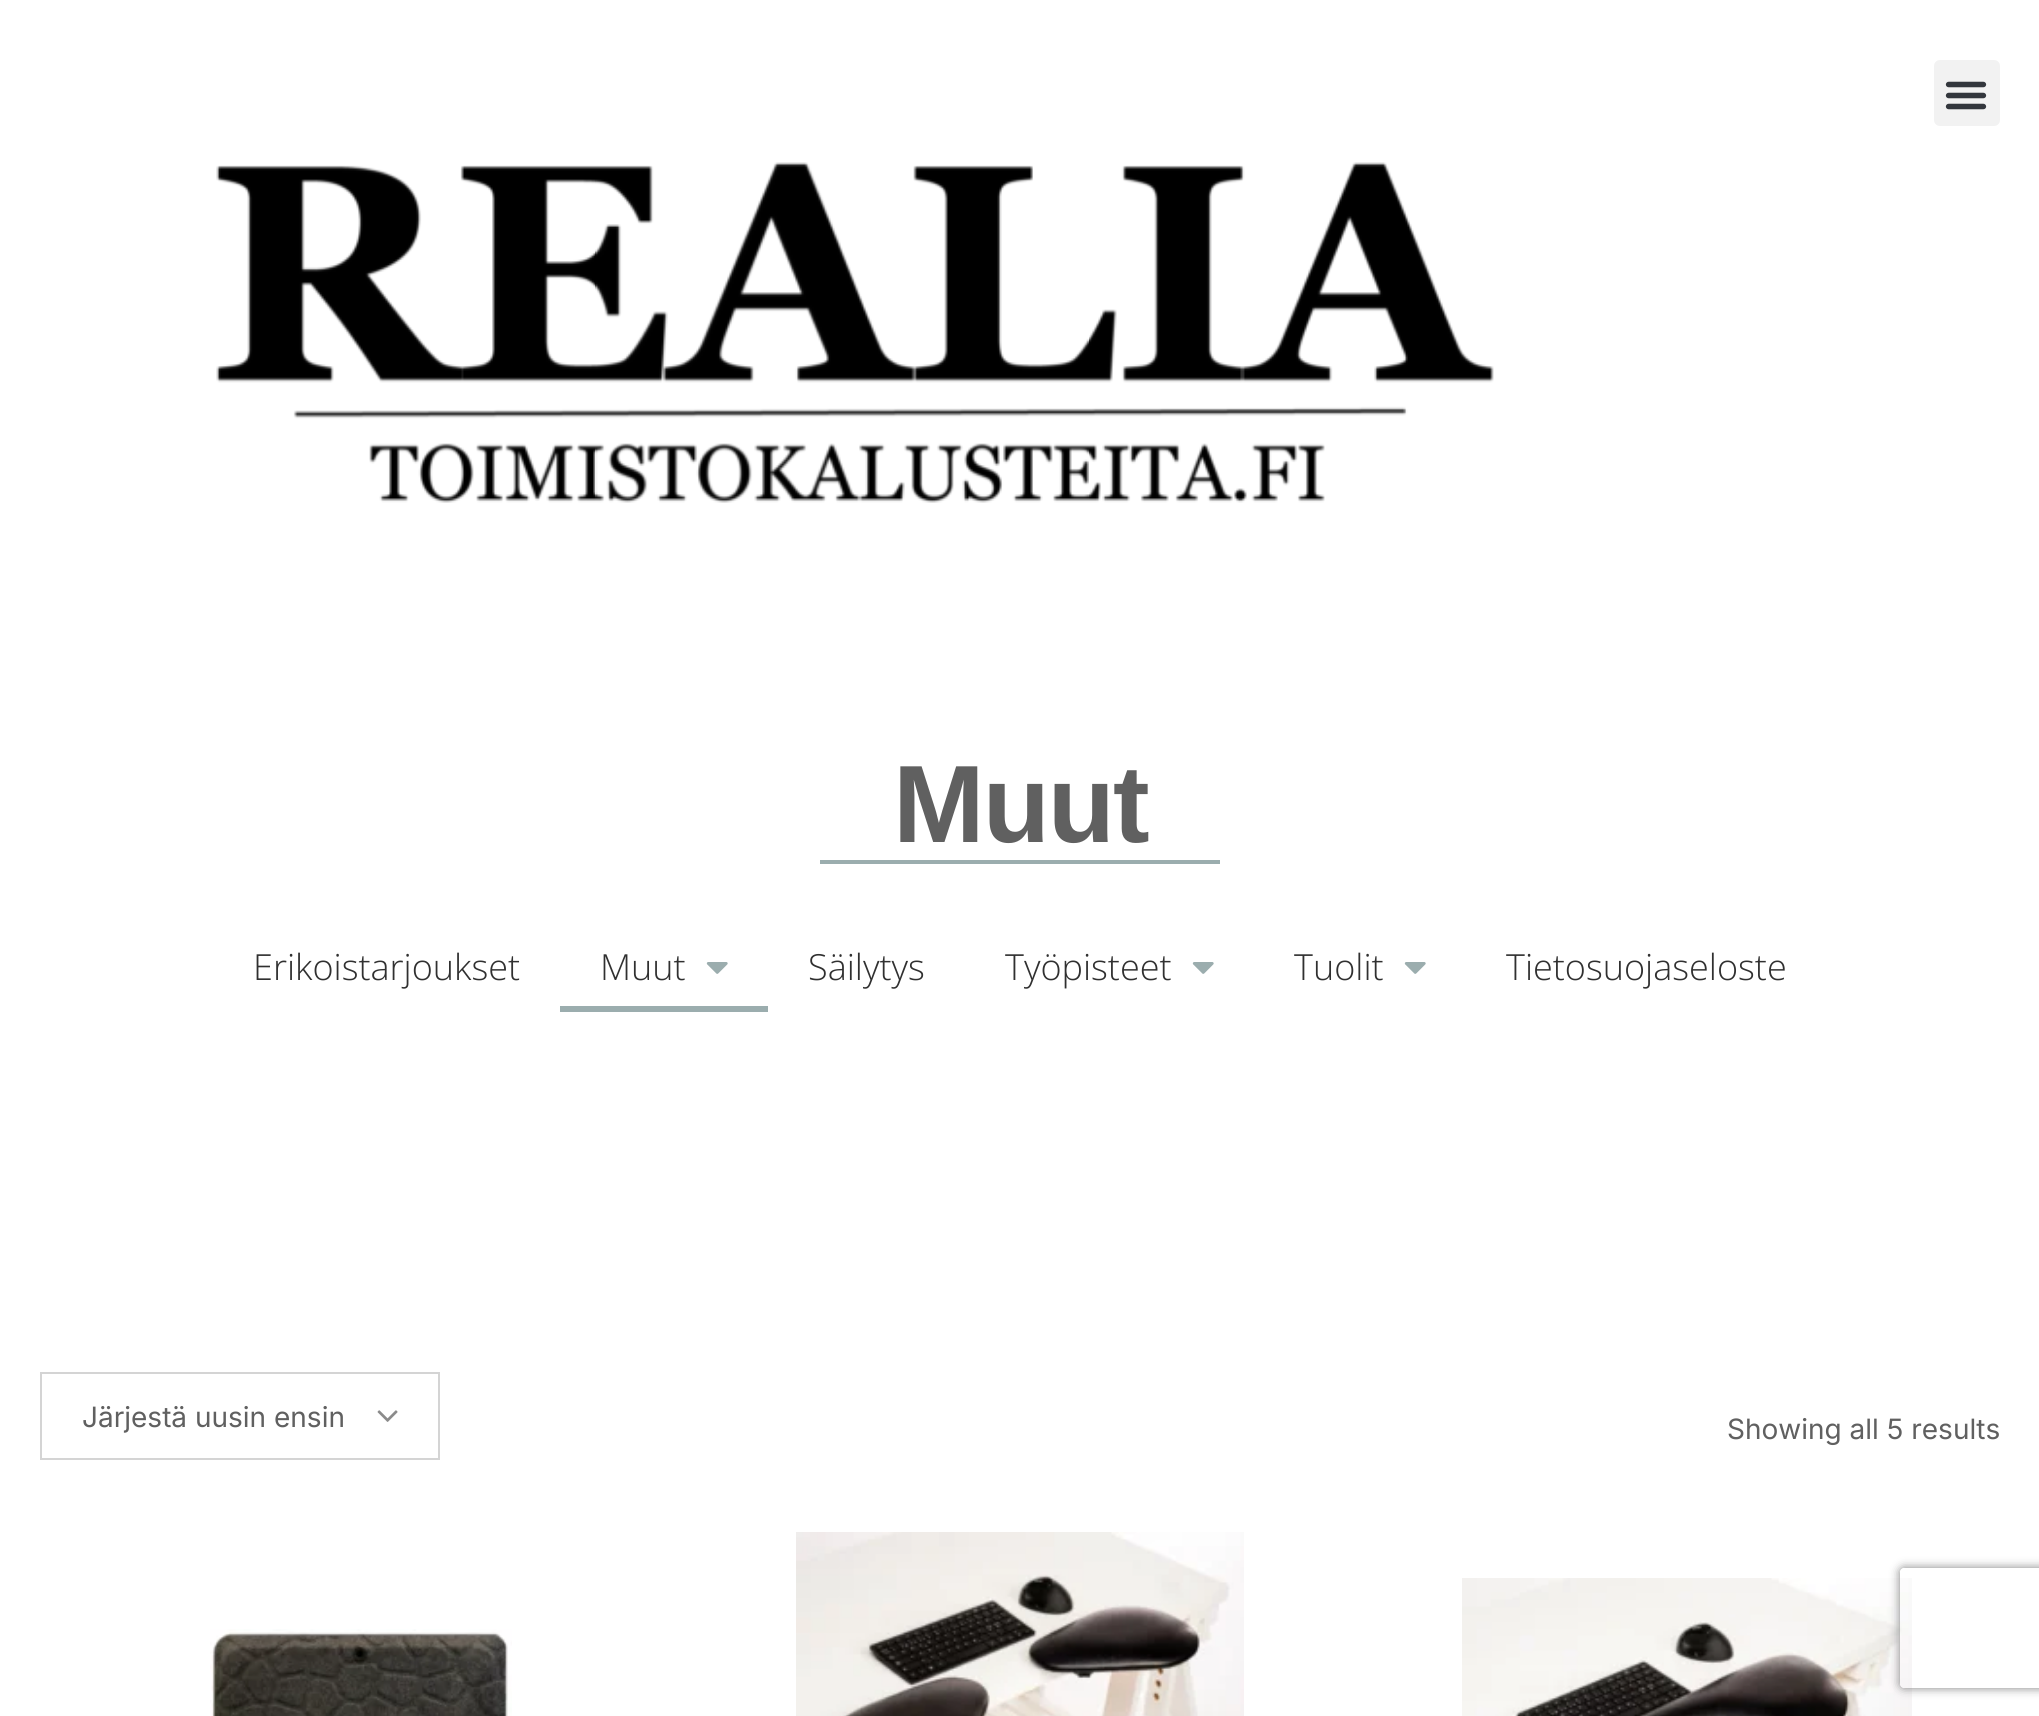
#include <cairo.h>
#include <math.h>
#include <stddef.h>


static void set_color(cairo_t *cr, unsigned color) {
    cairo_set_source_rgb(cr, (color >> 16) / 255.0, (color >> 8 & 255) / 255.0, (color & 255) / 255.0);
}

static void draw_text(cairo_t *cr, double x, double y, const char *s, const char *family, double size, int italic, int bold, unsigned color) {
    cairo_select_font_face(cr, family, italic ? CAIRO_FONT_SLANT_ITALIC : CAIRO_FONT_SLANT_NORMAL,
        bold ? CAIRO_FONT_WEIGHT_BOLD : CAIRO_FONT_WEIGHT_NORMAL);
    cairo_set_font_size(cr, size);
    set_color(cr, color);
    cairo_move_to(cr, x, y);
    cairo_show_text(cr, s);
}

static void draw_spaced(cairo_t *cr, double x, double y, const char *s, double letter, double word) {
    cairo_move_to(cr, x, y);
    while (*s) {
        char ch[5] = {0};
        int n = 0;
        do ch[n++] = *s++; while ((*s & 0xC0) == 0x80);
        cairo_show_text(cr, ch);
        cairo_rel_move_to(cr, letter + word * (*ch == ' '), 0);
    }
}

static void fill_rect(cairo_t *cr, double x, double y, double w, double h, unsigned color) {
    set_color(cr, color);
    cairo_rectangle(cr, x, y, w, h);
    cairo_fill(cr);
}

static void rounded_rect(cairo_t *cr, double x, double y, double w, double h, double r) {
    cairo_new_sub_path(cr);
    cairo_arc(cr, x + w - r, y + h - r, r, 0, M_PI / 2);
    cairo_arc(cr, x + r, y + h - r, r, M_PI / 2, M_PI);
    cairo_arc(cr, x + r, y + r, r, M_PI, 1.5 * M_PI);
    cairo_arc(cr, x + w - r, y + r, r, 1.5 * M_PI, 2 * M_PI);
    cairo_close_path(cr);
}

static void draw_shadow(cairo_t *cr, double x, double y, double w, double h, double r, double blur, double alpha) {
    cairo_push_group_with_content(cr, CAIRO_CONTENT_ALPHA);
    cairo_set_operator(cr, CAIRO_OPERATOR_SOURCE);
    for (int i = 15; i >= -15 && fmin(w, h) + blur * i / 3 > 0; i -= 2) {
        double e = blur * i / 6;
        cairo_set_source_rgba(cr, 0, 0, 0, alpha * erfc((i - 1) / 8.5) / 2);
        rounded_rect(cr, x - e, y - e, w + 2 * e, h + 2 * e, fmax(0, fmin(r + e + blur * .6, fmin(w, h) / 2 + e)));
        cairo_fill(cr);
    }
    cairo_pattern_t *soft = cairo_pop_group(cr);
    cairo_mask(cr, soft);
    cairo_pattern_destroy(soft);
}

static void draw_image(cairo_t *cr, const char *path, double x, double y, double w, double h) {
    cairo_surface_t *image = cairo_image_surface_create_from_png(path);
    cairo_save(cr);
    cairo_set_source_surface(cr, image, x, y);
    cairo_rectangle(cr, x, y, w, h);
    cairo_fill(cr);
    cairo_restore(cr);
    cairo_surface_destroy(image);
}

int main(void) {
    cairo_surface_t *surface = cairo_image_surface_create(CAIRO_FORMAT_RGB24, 2039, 1716);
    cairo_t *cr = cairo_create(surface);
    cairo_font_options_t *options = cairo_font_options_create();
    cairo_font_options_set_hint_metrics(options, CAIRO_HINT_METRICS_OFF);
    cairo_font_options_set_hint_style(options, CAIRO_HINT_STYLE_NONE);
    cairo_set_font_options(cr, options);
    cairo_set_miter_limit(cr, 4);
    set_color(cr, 0xFFFFFF);
    cairo_paint(cr);
    set_color(cr, 0xF2F2F2);
    rounded_rect(cr, 1934, 60, 66, 66, 6);
    cairo_fill(cr);
    draw_image(cr, "assets/img1.png", 1945, 81, 42, 29);
    draw_image(cr, "assets/img2.png", 216, 162, 1278, 341);
    cairo_select_font_face(cr, "Liberation Sans", CAIRO_FONT_SLANT_NORMAL, CAIRO_FONT_WEIGHT_BOLD);
    cairo_set_font_size(cr, 110);
    set_color(cr, 0x606060);
    draw_spaced(cr, 893, 842, "Muut", -2, 0);
    fill_rect(cr, 820, 860, 400, 4, 0x9BADAE);
    draw_text(cr, 253, 980, "Erikoistarjoukset", "Open Sans Light", 36, 0, 0, 0x303030);
    draw_text(cr, 600, 980, "Muut", "Open Sans Light", 36, 0, 0, 0x303030);
    draw_image(cr, "assets/img3.png", 706, 962, 22, 12);
    fill_rect(cr, 560, 1006, 208, 6, 0x9BADAE);
    draw_text(cr, 808, 980, "Säilytys", "Open Sans Light", 36, 0, 0, 0x303030);
    draw_text(cr, 1005, 980, "Työpisteet", "Open Sans Light", 36, 0, 0, 0x303030);
    draw_image(cr, "assets/img3.png", 1192, 962, 22, 12);
    draw_text(cr, 1294, 980, "Tuolit", "Open Sans Light", 36, 0, 0, 0x303030);
    draw_image(cr, "assets/img3.png", 1404, 962, 22, 12);
    draw_text(cr, 1506, 980, "Tietosuojaseloste", "Open Sans Light", 36, 0, 0, 0x303030);
    cairo_rectangle(cr, 41, 1373, 398, 86);
    set_color(cr, 0xD4D4D4);
    cairo_stroke(cr);
    draw_text(cr, 82, 1427, "Järjestä uusin ensin", "Inter", 28, 0, 0, 0x606060);
    draw_image(cr, "assets/img4.png", 377, 1410, 21, 12);
    draw_text(cr, 1727, 1439, "Showing all 5 results", "Inter", 28, 0, 0, 0x606060);
    draw_image(cr, "assets/img5.png", 210, 1629, 302, 87);
    draw_image(cr, "assets/img6.png", 796, 1532, 448, 184);
    draw_image(cr, "assets/img7.png", 1462, 1578, 450, 138);
    cairo_save(cr);
    cairo_set_fill_rule(cr, CAIRO_FILL_RULE_EVEN_ODD);
    cairo_new_path(cr);
    cairo_move_to(cr, 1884, 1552);
    cairo_line_to(cr, 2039, 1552);
    cairo_line_to(cr, 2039, 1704);
    cairo_line_to(cr, 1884, 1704);
    cairo_close_path(cr);
    cairo_move_to(cr, 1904, 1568);
    cairo_line_to(cr, 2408, 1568);
    cairo_curve_to(cr, 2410, 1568, 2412, 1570, 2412, 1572);
    cairo_line_to(cr, 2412, 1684);
    cairo_curve_to(cr, 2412, 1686, 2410, 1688, 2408, 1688);
    cairo_line_to(cr, 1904, 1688);
    cairo_curve_to(cr, 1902, 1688, 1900, 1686, 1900, 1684);
    cairo_line_to(cr, 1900, 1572);
    cairo_curve_to(cr, 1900, 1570, 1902, 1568, 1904, 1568);
    cairo_close_path(cr);
    cairo_clip(cr);
    set_color(cr, 0x808080);
    draw_shadow(cr, 1900, 1568, 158, 120, 4, 5, 1);
    cairo_restore(cr);
    cairo_surface_write_to_png(surface, "output.png");
    cairo_font_options_destroy(options);
    cairo_destroy(cr);
    cairo_surface_destroy(surface);
    return 0;
}
